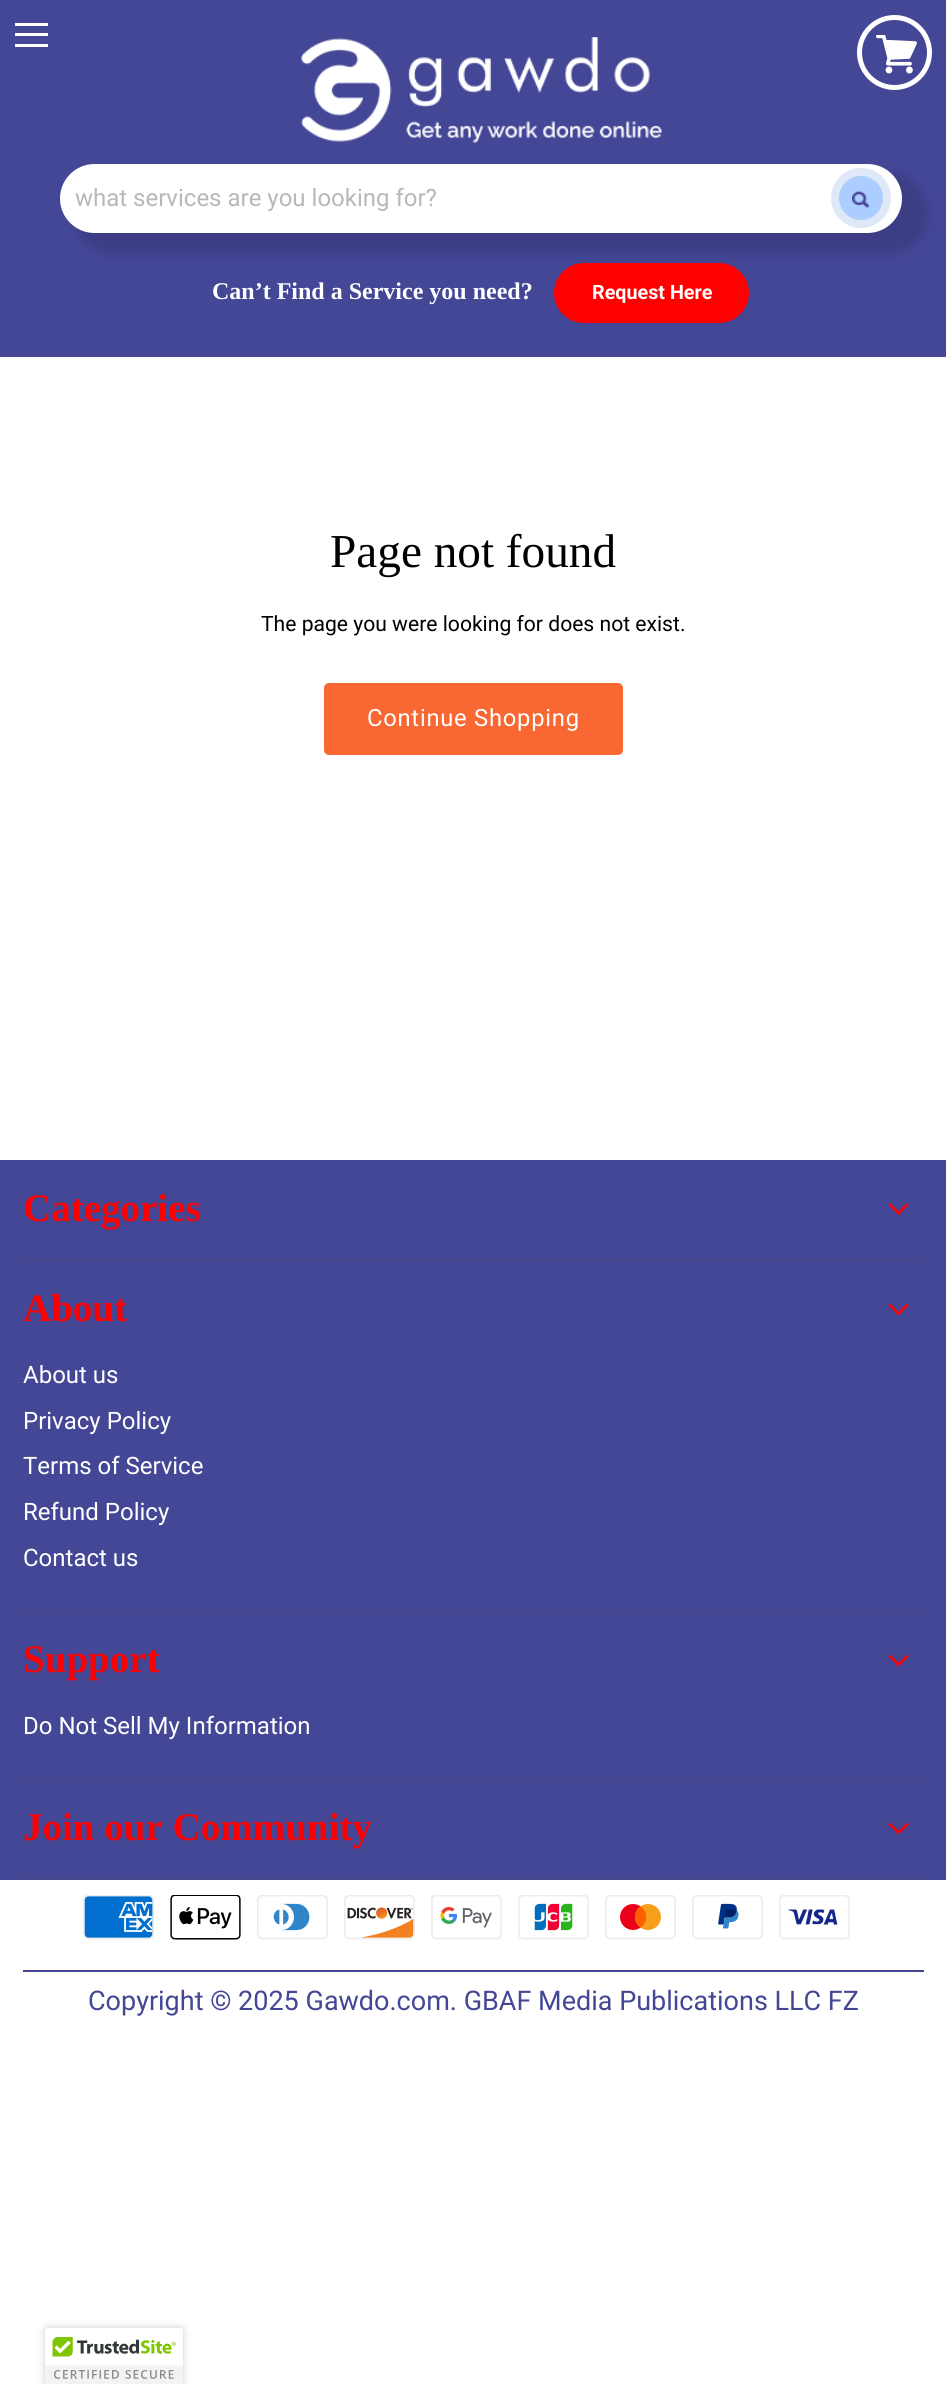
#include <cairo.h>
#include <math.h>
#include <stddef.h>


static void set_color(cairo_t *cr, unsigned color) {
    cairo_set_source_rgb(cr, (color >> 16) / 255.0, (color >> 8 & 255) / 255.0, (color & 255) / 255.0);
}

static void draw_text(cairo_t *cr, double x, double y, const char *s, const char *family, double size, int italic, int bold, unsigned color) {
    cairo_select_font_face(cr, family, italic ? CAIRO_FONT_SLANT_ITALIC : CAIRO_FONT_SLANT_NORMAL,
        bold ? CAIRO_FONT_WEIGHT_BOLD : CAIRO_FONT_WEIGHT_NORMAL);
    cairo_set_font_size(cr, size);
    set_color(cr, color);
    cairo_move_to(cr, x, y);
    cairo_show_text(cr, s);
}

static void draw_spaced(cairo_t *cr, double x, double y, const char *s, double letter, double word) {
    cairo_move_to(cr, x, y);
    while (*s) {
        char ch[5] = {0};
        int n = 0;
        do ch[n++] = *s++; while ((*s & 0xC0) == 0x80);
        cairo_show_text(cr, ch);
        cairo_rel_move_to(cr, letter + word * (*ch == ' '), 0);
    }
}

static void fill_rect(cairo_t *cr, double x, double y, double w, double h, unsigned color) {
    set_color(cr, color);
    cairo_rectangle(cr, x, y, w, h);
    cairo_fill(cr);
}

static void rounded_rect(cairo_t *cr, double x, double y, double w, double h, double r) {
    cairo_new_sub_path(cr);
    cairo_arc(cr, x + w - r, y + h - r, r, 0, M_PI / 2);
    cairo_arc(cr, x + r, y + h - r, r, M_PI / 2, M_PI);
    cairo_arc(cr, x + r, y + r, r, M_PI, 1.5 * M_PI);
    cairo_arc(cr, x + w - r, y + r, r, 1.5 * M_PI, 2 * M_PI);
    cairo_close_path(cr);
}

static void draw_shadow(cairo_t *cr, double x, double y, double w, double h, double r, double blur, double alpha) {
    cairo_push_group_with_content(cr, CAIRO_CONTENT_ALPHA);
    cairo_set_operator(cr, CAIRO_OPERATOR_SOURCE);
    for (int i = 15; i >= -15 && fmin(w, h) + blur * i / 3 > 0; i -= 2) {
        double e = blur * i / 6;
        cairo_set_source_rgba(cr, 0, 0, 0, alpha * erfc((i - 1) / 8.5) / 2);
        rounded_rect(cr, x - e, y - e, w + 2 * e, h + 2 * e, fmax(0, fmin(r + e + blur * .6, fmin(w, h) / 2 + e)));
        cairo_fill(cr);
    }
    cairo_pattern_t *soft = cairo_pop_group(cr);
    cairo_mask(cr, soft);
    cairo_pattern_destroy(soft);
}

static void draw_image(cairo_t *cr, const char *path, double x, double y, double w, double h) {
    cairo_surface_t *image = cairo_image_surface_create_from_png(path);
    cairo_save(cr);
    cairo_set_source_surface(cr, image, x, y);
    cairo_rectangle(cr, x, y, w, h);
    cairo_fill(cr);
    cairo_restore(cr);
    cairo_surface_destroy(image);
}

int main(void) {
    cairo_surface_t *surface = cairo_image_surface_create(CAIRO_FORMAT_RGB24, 946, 2384);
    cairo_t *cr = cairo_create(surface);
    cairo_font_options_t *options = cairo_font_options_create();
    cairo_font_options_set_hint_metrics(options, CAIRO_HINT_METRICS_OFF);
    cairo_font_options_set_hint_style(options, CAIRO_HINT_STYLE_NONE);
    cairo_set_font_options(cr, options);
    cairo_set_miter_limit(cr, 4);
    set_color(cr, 0xFFFFFF);
    cairo_paint(cr);
    fill_rect(cr, 0, 0, 946, 357, 0x444696);
    fill_rect(cr, 15, 23, 33, 3, 0xFFFFFF);
    fill_rect(cr, 15, 33, 33, 3, 0xFFFFFF);
    fill_rect(cr, 15, 44, 33, 3, 0xFFFFFF);
    cairo_arc(cr, 894.5, 52.5, 35, 0, 2 * M_PI);
    cairo_set_line_width(cr, 5);
    cairo_stroke(cr);
    draw_image(cr, "assets/img1.png", 876, 35, 41, 39);
    draw_image(cr, "assets/img2.png", 301, 37, 361, 106);
    set_color(cr, 0xFF0000);
    rounded_rect(cr, 554, 263, 195, 60, 30);
    cairo_fill(cr);
    set_color(cr, 0x3C3D84);
    draw_shadow(cr, 74, 173, 853, 81, 40.5, 4.5, 1);
    set_color(cr, 0xFFFFFF);
    rounded_rect(cr, 60, 164, 842, 69, 34.5);
    cairo_fill(cr);
    draw_text(cr, 75, 206, "what services are you looking for?", "Roboto", 24, 0, 0, 0xB8B8B8);
    set_color(cr, 0xACCDFF);
    cairo_new_path(cr);
    cairo_arc(cr, 861, 198, 26, 0, 2 * M_PI);
    cairo_fill_preserve(cr);
    set_color(cr, 0xDEE8F6);
    cairo_set_line_width(cr, 8);
    cairo_stroke(cr);
    draw_image(cr, "assets/img3.png", 852, 191, 17, 17);
    draw_text(cr, 212, 299, "Can’t Find a Service you need?", "Liberation Serif", 24, 0, 1, 0xFFFFFF);
    draw_text(cr, 592, 299, "Request Here", "Roboto", 19.75, 0, 1, 0xFFFFFF);
    draw_text(cr, 330, 567, "Page not found", "Liberation Serif", 47.25, 0, 0, 0x000000);
    draw_text(cr, 261, 631, "The page you were looking for does not exist.", "Roboto", 21.1, 0, 0, 0x000000);
    set_color(cr, 0xF96833);
    rounded_rect(cr, 325, 684, 297, 70, 4);
    cairo_fill_preserve(cr);
    cairo_set_line_width(cr, 2);
    cairo_stroke(cr);
    cairo_set_font_size(cr, 23.75);
    set_color(cr, 0xFFFFFF);
    draw_spaced(cr, 367, 726, "Continue Shopping", 0.75, 0);
    fill_rect(cr, 0, 1160, 946, 720, 0x444696);
    fill_rect(cr, 23, 1259, 901, 2, 0x48498D);
    draw_text(cr, 23, 1221, "Categories", "Liberation Serif", 39, 0, 1, 0xFF0000);
    draw_image(cr, "assets/img4.png", 888, 1203, 21, 12);
    fill_rect(cr, 23, 1610, 901, 2, 0x48498D);
    draw_text(cr, 23, 1321, "About", "Liberation Serif", 39, 0, 1, 0xFF0000);
    draw_image(cr, "assets/img5.png", 888, 1304, 21, 12);
    draw_text(cr, 23, 1383, "About us", "Roboto", 24, 0, 0, 0xFFFFFF);
    draw_text(cr, 23, 1429, "Privacy Policy", "Roboto", 24, 0, 0, 0xFFFFFF);
    draw_text(cr, 23, 1474, "Terms of Service", "Roboto", 24, 0, 0, 0xFFFFFF);
    draw_text(cr, 23, 1520, "Refund Policy", "Roboto", 24, 0, 0, 0xFFFFFF);
    draw_text(cr, 23, 1566, "Contact us", "Roboto", 24, 0, 0, 0xFFFFFF);
    fill_rect(cr, 23, 1778, 901, 2, 0x48498D);
    draw_text(cr, 23, 1672, "Support", "Liberation Serif", 39, 0, 1, 0xFF0000);
    draw_image(cr, "assets/img5.png", 888, 1655, 21, 12);
    draw_text(cr, 23, 1734, "Do Not Sell My Information", "Roboto", 24, 0, 0, 0xFFFFFF);
    fill_rect(cr, 23, 1878, 901, 2, 0x48498D);
    draw_text(cr, 23, 1840, "Join our Community", "Liberation Serif", 39, 0, 1, 0xFF0000);
    cairo_new_path(cr);
    cairo_move_to(cr, 898.5, 1832.5);
    cairo_line_to(cr, 907, 1824.5);
    cairo_move_to(cr, 898.5, 1832.5);
    cairo_line_to(cr, 890, 1824.5);
    cairo_set_line_width(cr, 2.6);
    cairo_set_line_cap(cr, CAIRO_LINE_CAP_SQUARE);
    cairo_stroke(cr);
    fill_rect(cr, 23, 1970, 901, 2, 0x444696);
    draw_image(cr, "assets/img6.png", 83, 1895, 71, 45);
    draw_image(cr, "assets/img7.png", 170, 1895, 71, 45);
    draw_image(cr, "assets/img8.png", 257, 1895, 71, 45);
    draw_image(cr, "assets/img9.png", 344, 1895, 71, 45);
    draw_image(cr, "assets/img10.png", 431, 1895, 71, 45);
    draw_image(cr, "assets/img11.png", 518, 1895, 71, 45);
    draw_image(cr, "assets/img12.png", 605, 1895, 71, 45);
    draw_image(cr, "assets/img13.png", 692, 1895, 71, 45);
    draw_image(cr, "assets/img14.png", 779, 1895, 71, 45);
    draw_text(cr, 88, 2010, "Copyright © 2025 Gawdo.com. GBAF Media Publications LLC FZ", "Roboto", 27, 0, 0, 0x444696);
    set_color(cr, 0x000000);
    draw_shadow(cr, 45, 2328, 138, 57, 3, 4, 0.2);
    set_color(cr, 0xFFFFFF);
    cairo_new_path(cr);
    cairo_move_to(cr, 48, 2328);
    cairo_line_to(cr, 180, 2328);
    cairo_curve_to(cr, 181.5, 2328, 183, 2329.5, 183, 2331);
    cairo_line_to(cr, 183, 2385);
    cairo_line_to(cr, 45, 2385);
    cairo_line_to(cr, 45, 2331);
    cairo_curve_to(cr, 45, 2329.5, 46.5, 2328, 48, 2328);
    cairo_close_path(cr);
    cairo_fill(cr);
    draw_image(cr, "assets/img15.png", 45, 2329, 138, 55);
    cairo_surface_write_to_png(surface, "output.png");
    cairo_font_options_destroy(options);
    cairo_destroy(cr);
    cairo_surface_destroy(surface);
    return 0;
}
